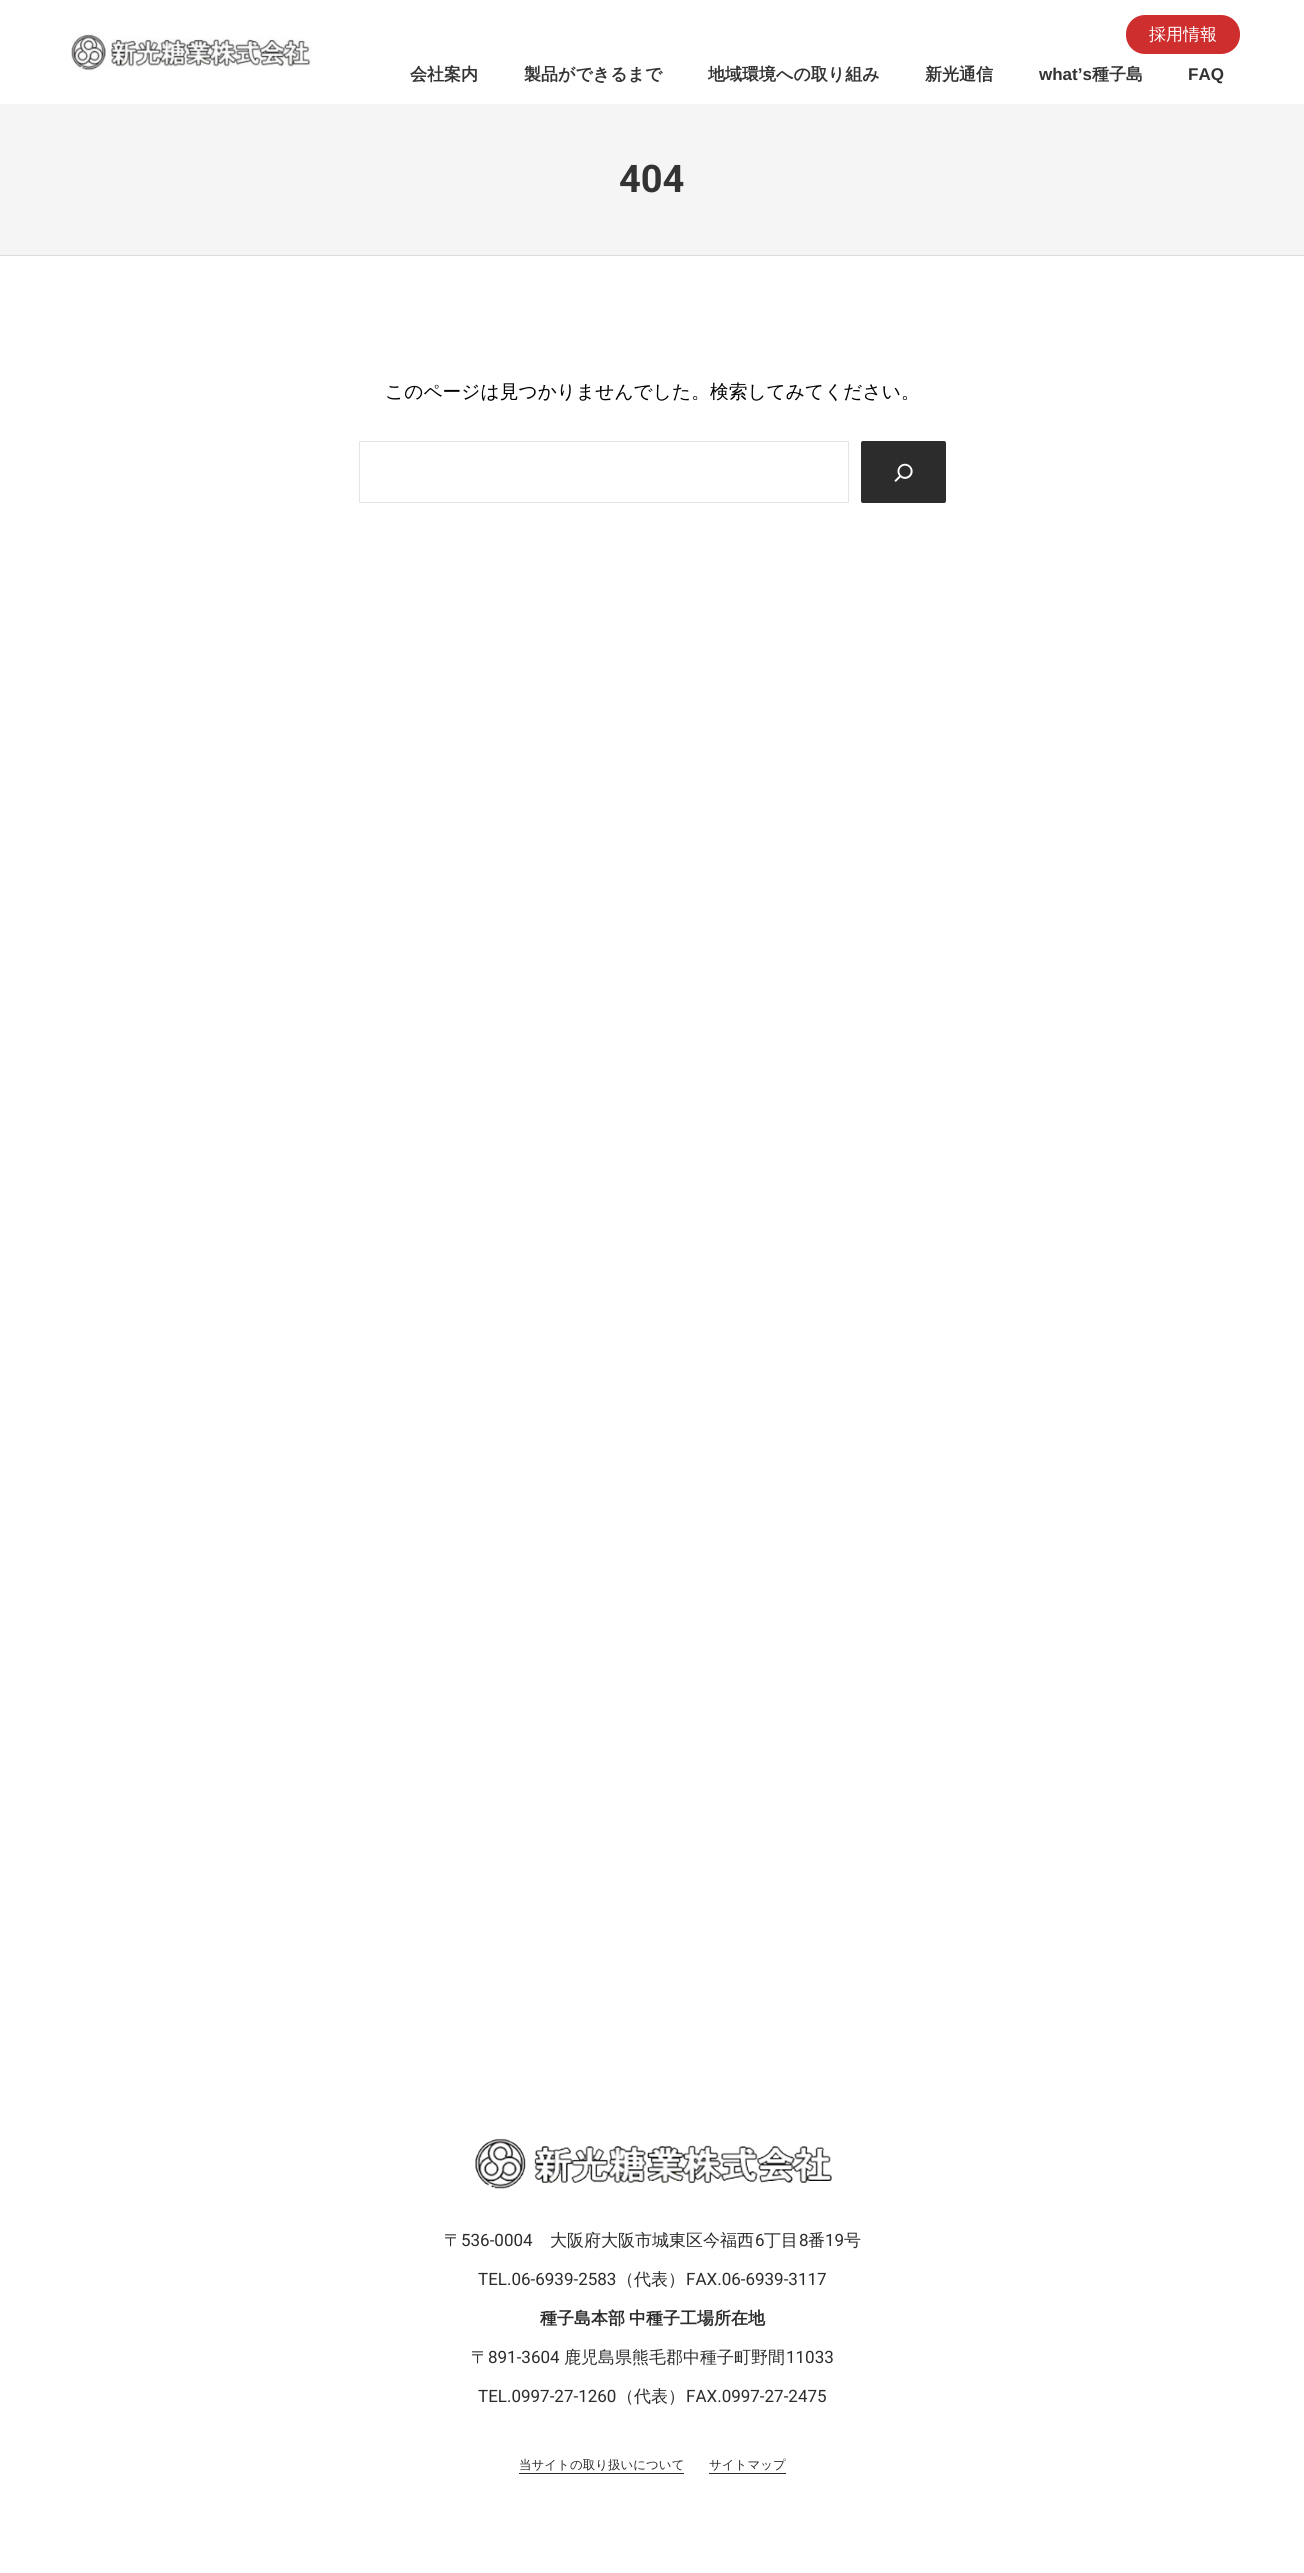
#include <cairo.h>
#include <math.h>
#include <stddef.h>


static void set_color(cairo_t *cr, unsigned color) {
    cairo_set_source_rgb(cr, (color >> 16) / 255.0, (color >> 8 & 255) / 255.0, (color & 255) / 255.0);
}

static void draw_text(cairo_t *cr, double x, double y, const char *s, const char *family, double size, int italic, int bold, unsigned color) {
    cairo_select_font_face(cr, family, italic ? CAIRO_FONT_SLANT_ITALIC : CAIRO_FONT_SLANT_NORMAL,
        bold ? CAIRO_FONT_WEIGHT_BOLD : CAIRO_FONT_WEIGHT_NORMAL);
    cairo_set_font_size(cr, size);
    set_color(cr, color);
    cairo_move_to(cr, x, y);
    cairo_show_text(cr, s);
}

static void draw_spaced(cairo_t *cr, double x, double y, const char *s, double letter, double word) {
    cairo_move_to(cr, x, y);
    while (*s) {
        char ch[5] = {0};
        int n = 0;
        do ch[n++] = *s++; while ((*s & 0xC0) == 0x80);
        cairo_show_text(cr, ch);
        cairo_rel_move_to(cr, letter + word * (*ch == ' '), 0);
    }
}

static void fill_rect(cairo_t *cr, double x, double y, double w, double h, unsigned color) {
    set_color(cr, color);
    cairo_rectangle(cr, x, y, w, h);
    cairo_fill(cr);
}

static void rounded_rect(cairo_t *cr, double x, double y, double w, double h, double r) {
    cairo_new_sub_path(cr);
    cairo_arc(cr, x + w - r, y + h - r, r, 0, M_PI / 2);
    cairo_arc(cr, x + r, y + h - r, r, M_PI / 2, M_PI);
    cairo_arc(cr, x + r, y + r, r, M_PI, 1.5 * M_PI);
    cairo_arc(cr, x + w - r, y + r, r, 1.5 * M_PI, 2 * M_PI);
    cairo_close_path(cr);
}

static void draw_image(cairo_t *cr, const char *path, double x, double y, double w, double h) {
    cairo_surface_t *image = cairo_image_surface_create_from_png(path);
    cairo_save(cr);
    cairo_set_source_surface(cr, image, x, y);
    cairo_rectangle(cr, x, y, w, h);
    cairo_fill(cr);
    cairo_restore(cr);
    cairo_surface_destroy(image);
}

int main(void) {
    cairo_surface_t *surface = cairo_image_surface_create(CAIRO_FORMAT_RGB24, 1304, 2573);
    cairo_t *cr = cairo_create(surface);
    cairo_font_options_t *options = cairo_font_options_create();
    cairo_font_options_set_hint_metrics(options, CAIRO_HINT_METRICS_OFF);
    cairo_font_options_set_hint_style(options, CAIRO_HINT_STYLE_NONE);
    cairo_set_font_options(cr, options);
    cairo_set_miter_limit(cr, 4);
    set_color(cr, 0xFFFFFF);
    cairo_paint(cr);
    draw_image(cr, "assets/img1.png", 71, 32, 241, 39);
    set_color(cr, 0xCF2E2E);
    rounded_rect(cr, 1126, 15, 114, 39, 19);
    cairo_fill(cr);
    draw_text(cr, 1149, 40, "採用情報", "WenQuanYi Zen Hei Medium", 17, 0, 0, 0xFFFFFF);
    draw_text(cr, 410, 80, "会社案内", "WenQuanYi Zen Hei", 17, 0, 1, 0x333333);
    draw_text(cr, 524, 80, "製品ができるまで", "WenQuanYi Zen Hei", 17, 0, 1, 0x333333);
    draw_text(cr, 708, 80, "地域環境への取り組み", "WenQuanYi Zen Hei", 17, 0, 1, 0x333333);
    draw_text(cr, 925, 80, "新光通信", "WenQuanYi Zen Hei", 17, 0, 1, 0x333333);
    draw_text(cr, 1039, 80, "what’s", "Liberation Sans", 17, 0, 1, 0x333333);
    draw_text(cr, 1092, 80, "種子島", "WenQuanYi Zen Hei", 17, 0, 1, 0x333333);
    draw_text(cr, 1188, 80, "FAQ", "Liberation Sans", 17, 0, 1, 0x333333);
    fill_rect(cr, 0, 104, 1304, 151, 0xF5F5F5);
    fill_rect(cr, 0, 255, 1304, 1, 0xDDDDDD);
    draw_text(cr, 619, 192, "404", "Roboto", 38, 0, 1, 0x333333);
    draw_text(cr, 385, 398, "このページは見つかりませんでした。検索してみてください。", "WenQuanYi Zen Hei Medium", 18.75, 0, 0, 0x000000);
    cairo_rectangle(cr, 359.5, 441.5, 489, 61);
    set_color(cr, 0xE6E6E6);
    cairo_set_line_width(cr, 1);
    cairo_stroke(cr);
    set_color(cr, 0x2C2C2C);
    rounded_rect(cr, 861, 441, 85, 62, 2);
    cairo_fill(cr);
    draw_image(cr, "assets/img2.png", 894, 463, 19, 19);
    draw_image(cr, "assets/img3.png", 475, 2138, 357, 51);
    draw_text(cr, 444, 2246, "〒", "WenQuanYi Zen Hei Medium", 17, 0, 0, 0x2C2C2C);
    draw_text(cr, 461, 2246, "536-0004", "Roboto", 17, 0, 0, 0x2C2C2C);
    draw_text(cr, 550, 2246, "大阪府大阪市城東区今福西", "WenQuanYi Zen Hei Medium", 17, 0, 0, 0x2C2C2C);
    draw_text(cr, 755, 2246, "6", "Roboto", 17, 0, 0, 0x2C2C2C);
    draw_text(cr, 764, 2246, "丁目", "WenQuanYi Zen Hei Medium", 17, 0, 0, 0x2C2C2C);
    draw_text(cr, 799, 2246, "8", "Roboto", 17, 0, 0, 0x2C2C2C);
    draw_text(cr, 808, 2246, "番", "WenQuanYi Zen Hei Medium", 17, 0, 0, 0x2C2C2C);
    draw_text(cr, 825, 2246, "19", "Roboto", 17, 0, 0, 0x2C2C2C);
    draw_text(cr, 844, 2246, "号", "WenQuanYi Zen Hei Medium", 17, 0, 0, 0x2C2C2C);
    draw_text(cr, 478, 2285, "TEL.06-6939-2583", "Roboto", 17, 0, 0, 0x2C2C2C);
    draw_text(cr, 617, 2285, "（代表）", "WenQuanYi Zen Hei Medium", 17, 0, 0, 0x2C2C2C);
    draw_text(cr, 686, 2285, "FAX.06-6939-3117", "Roboto", 17, 0, 0, 0x2C2C2C);
    cairo_select_font_face(cr, "WenQuanYi Zen Hei", CAIRO_FONT_SLANT_NORMAL, CAIRO_FONT_WEIGHT_BOLD);
    draw_spaced(cr, 540, 2324, "種子島本部 中種子工場所在地", 0, -1);
    draw_text(cr, 471, 2363, "〒", "WenQuanYi Zen Hei Medium", 17, 0, 0, 0x2C2C2C);
    draw_text(cr, 488, 2363, "891-3604", "Roboto", 17, 0, 0, 0x2C2C2C);
    draw_text(cr, 564, 2363, "鹿児島県熊毛郡中種子町野間", "WenQuanYi Zen Hei Medium", 17, 0, 0, 0x2C2C2C);
    draw_text(cr, 786, 2363, "11033", "Roboto", 17, 0, 0, 0x2C2C2C);
    draw_text(cr, 478, 2402, "TEL.0997-27-1260", "Roboto", 17, 0, 0, 0x2C2C2C);
    draw_text(cr, 617, 2402, "（代表）", "WenQuanYi Zen Hei Medium", 17, 0, 0, 0x2C2C2C);
    draw_text(cr, 686, 2402, "FAX.0997-27-2475", "Roboto", 17, 0, 0, 0x2C2C2C);
    draw_text(cr, 519, 2469, "当サイトの取り扱いについて", "WenQuanYi Zen Hei Medium", 12.5, 0, 0, 0x2C2C2C);
    fill_rect(cr, 519, 2473, 165, 1, 0x2C2C2C);
    draw_text(cr, 709, 2469, "サイトマップ", "WenQuanYi Zen Hei Medium", 12.5, 0, 0, 0x2C2C2C);
    fill_rect(cr, 709, 2473, 77, 1, 0x2C2C2C);
    cairo_surface_write_to_png(surface, "output.png");
    cairo_font_options_destroy(options);
    cairo_destroy(cr);
    cairo_surface_destroy(surface);
    return 0;
}
